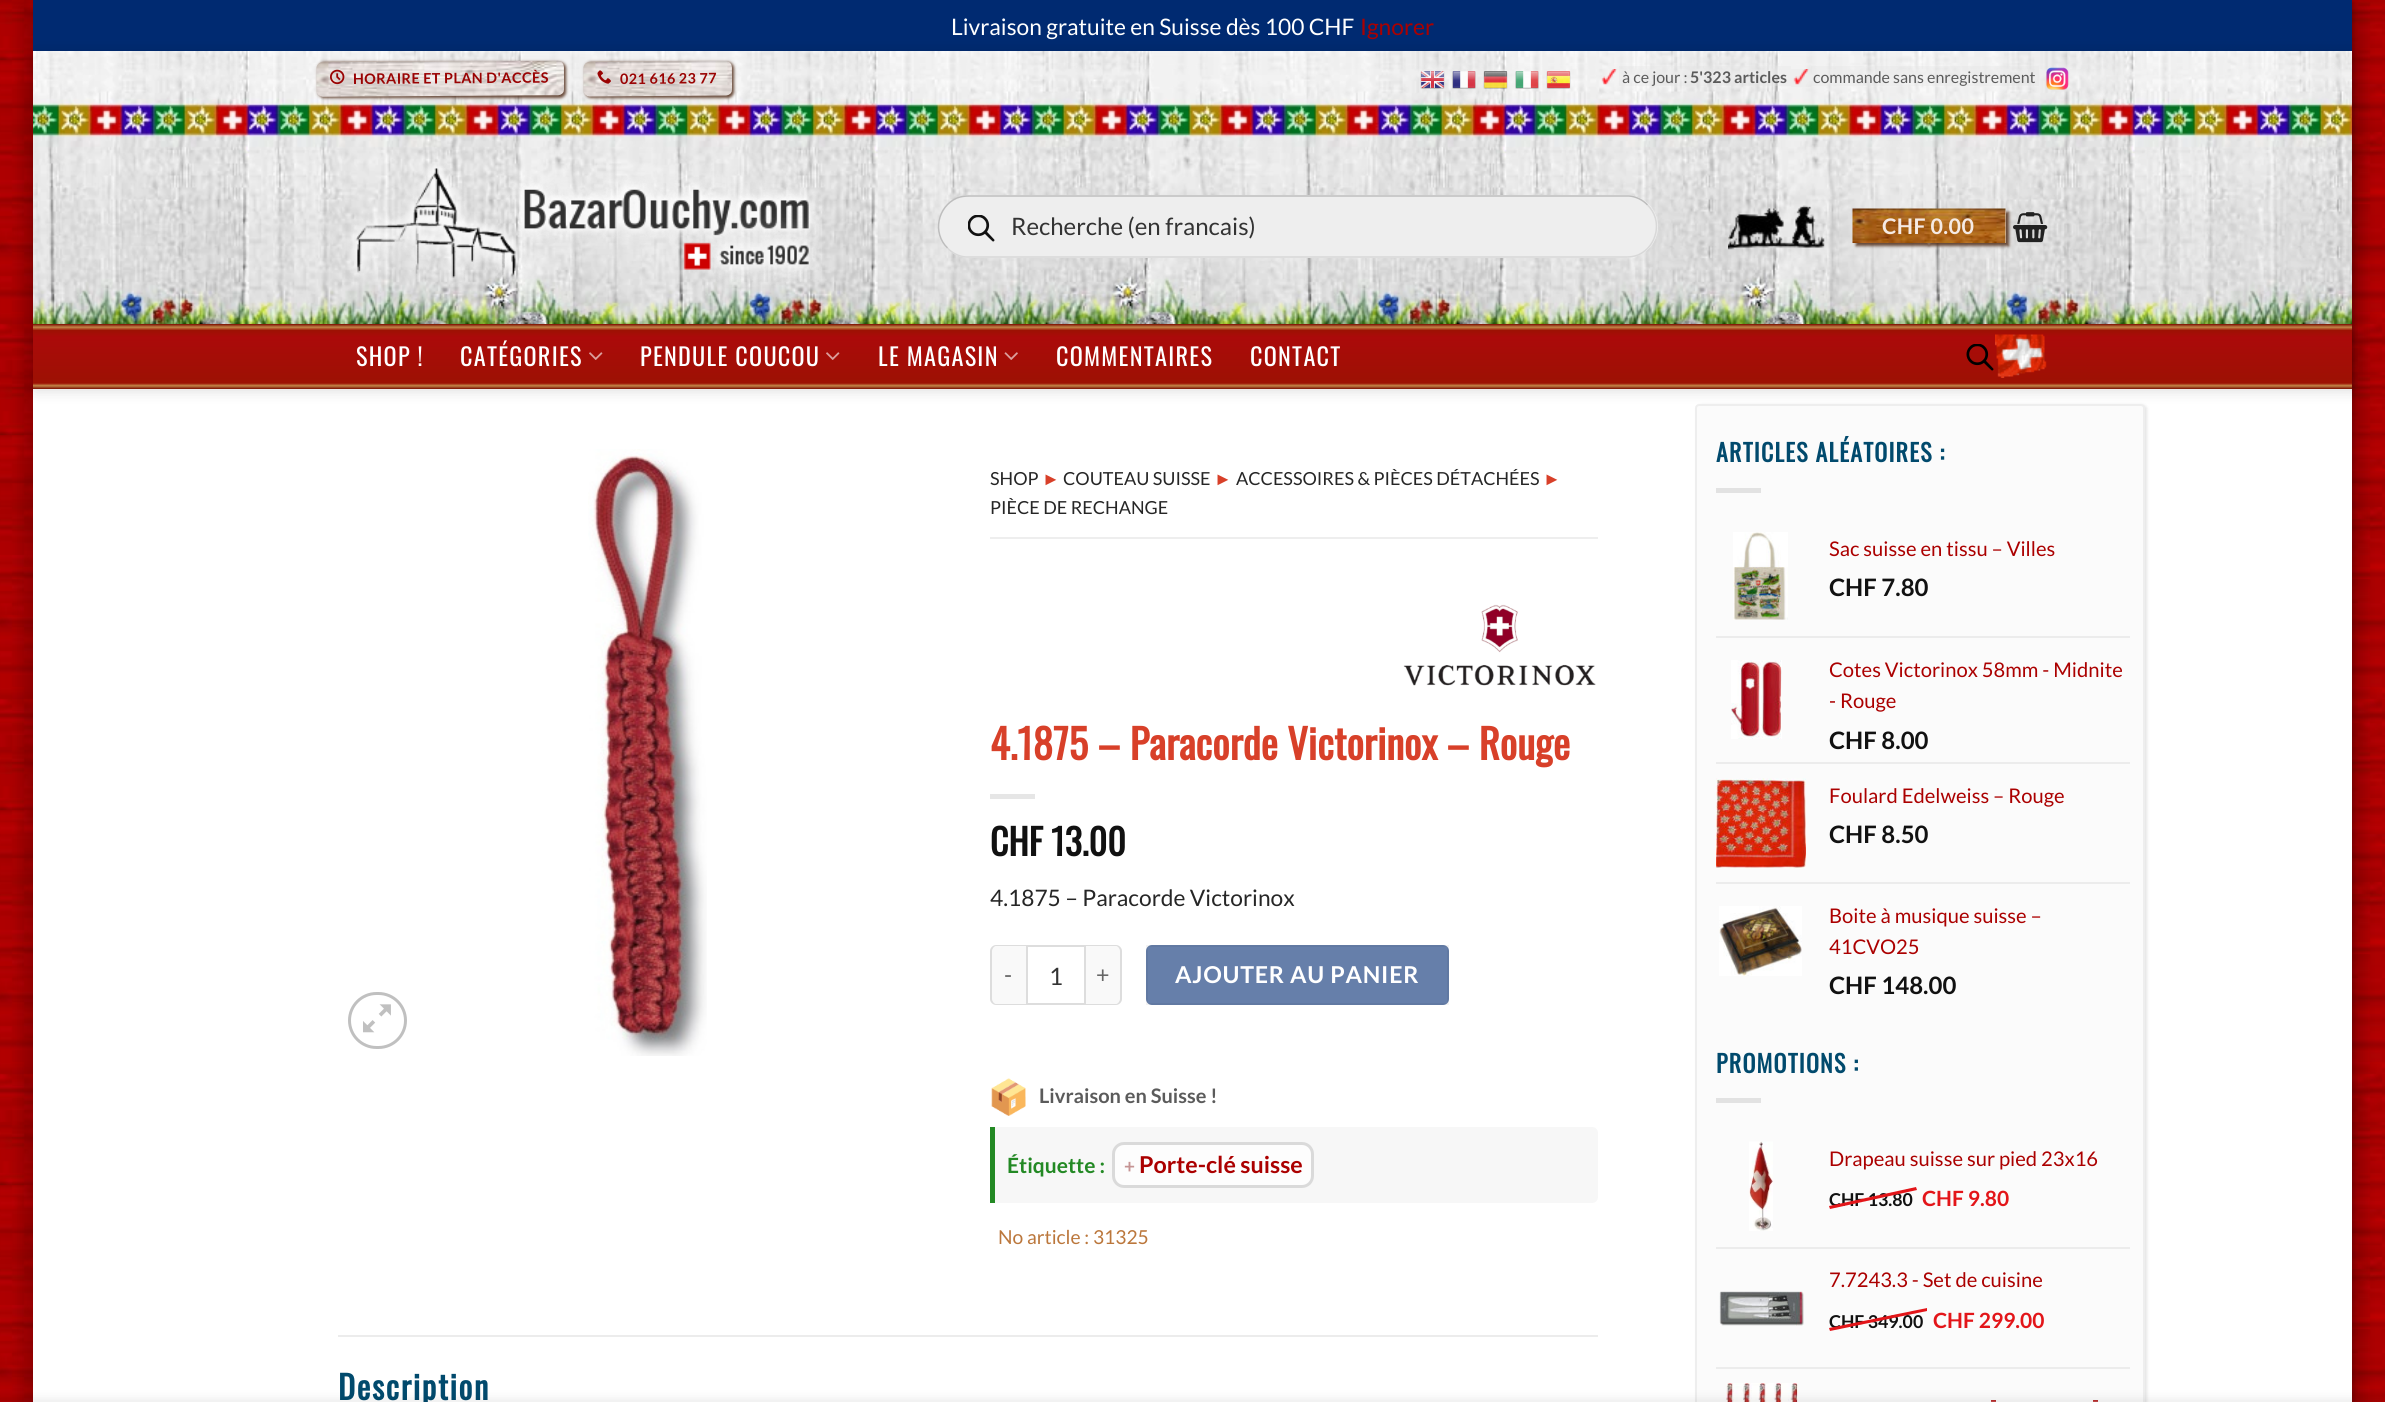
#include <cairo.h>
#include <math.h>
#include <stddef.h>


static void set_color(cairo_t *cr, unsigned color) {
    cairo_set_source_rgb(cr, (color >> 16) / 255.0, (color >> 8 & 255) / 255.0, (color & 255) / 255.0);
}

static void draw_text(cairo_t *cr, double x, double y, const char *s, const char *family, double size, int italic, int bold, unsigned color) {
    cairo_select_font_face(cr, family, italic ? CAIRO_FONT_SLANT_ITALIC : CAIRO_FONT_SLANT_NORMAL,
        bold ? CAIRO_FONT_WEIGHT_BOLD : CAIRO_FONT_WEIGHT_NORMAL);
    cairo_set_font_size(cr, size);
    set_color(cr, color);
    cairo_move_to(cr, x, y);
    cairo_show_text(cr, s);
}

static void draw_spaced(cairo_t *cr, double x, double y, const char *s, double letter, double word) {
    cairo_move_to(cr, x, y);
    while (*s) {
        char ch[5] = {0};
        int n = 0;
        do ch[n++] = *s++; while ((*s & 0xC0) == 0x80);
        cairo_show_text(cr, ch);
        cairo_rel_move_to(cr, letter + word * (*ch == ' '), 0);
    }
}

static void fill_rect(cairo_t *cr, double x, double y, double w, double h, unsigned color) {
    set_color(cr, color);
    cairo_rectangle(cr, x, y, w, h);
    cairo_fill(cr);
}

static void rounded_rect(cairo_t *cr, double x, double y, double w, double h, double r) {
    cairo_new_sub_path(cr);
    cairo_arc(cr, x + w - r, y + h - r, r, 0, M_PI / 2);
    cairo_arc(cr, x + r, y + h - r, r, M_PI / 2, M_PI);
    cairo_arc(cr, x + r, y + r, r, M_PI, 1.5 * M_PI);
    cairo_arc(cr, x + w - r, y + r, r, 1.5 * M_PI, 2 * M_PI);
    cairo_close_path(cr);
}

static void draw_shadow(cairo_t *cr, double x, double y, double w, double h, double r, double blur, double alpha) {
    cairo_push_group_with_content(cr, CAIRO_CONTENT_ALPHA);
    cairo_set_operator(cr, CAIRO_OPERATOR_SOURCE);
    for (int i = 15; i >= -15 && fmin(w, h) + blur * i / 3 > 0; i -= 2) {
        double e = blur * i / 6;
        cairo_set_source_rgba(cr, 0, 0, 0, alpha * erfc((i - 1) / 8.5) / 2);
        rounded_rect(cr, x - e, y - e, w + 2 * e, h + 2 * e, fmax(0, fmin(r + e + blur * .6, fmin(w, h) / 2 + e)));
        cairo_fill(cr);
    }
    cairo_pattern_t *soft = cairo_pop_group(cr);
    cairo_mask(cr, soft);
    cairo_pattern_destroy(soft);
}

static void draw_image(cairo_t *cr, const char *path, double x, double y, double w, double h) {
    cairo_surface_t *image = cairo_image_surface_create_from_png(path);
    cairo_save(cr);
    cairo_set_source_surface(cr, image, x, y);
    cairo_rectangle(cr, x, y, w, h);
    cairo_fill(cr);
    cairo_restore(cr);
    cairo_surface_destroy(image);
}

int main(void) {
    cairo_surface_t *surface = cairo_image_surface_create(CAIRO_FORMAT_RGB24, 2385, 1402);
    cairo_t *cr = cairo_create(surface);
    cairo_font_options_t *options = cairo_font_options_create();
    cairo_font_options_set_hint_metrics(options, CAIRO_HINT_METRICS_OFF);
    cairo_font_options_set_hint_style(options, CAIRO_HINT_STYLE_NONE);
    cairo_set_font_options(cr, options);
    cairo_set_miter_limit(cr, 4);
    cairo_pattern_t *gradient;
    set_color(cr, 0xFFFFFF);
    cairo_paint(cr);
    draw_image(cr, "assets/img1.png", 0, 0, 2385, 1402);
    set_color(cr, 0x000000);
    draw_shadow(cr, 21, 6, 2319, 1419, 0, 7.5, 0.18);
    draw_shadow(cr, 45, 6, 2319, 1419, 0, 7.5, 0.18);
    draw_shadow(cr, 35, 2, 2319, 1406, 0, 2, 0.2);
    fill_rect(cr, 33, 0, 2319, 51, 0x002A71);
    draw_text(cr, 951, 35, "Livraison gratuite en Suisse dès 100 CHF", "Lato", 22.75, 0, 0, 0xFFFFFF);
    draw_text(cr, 1360, 35, "Ignorer", "Lato", 22.75, 0, 0, 0xAB0000);
    fill_rect(cr, 33, 51, 2319, 1351, 0xFFFFFF);
    set_color(cr, 0x000000);
    draw_shadow(cr, 1697, 405, 450, 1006, 4, 1.5, 0.1);
    set_color(cr, 0xFBFBFB);
    rounded_rect(cr, 1696, 405, 448, 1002, 3);
    cairo_fill_preserve(cr);
    set_color(cr, 0xEEEEEE);
    cairo_stroke(cr);
    cairo_save(cr);
    cairo_set_fill_rule(cr, CAIRO_FILL_RULE_EVEN_ODD);
    cairo_new_path(cr);
    cairo_move_to(cr, 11, 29);
    cairo_line_to(cr, 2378, 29);
    cairo_line_to(cr, 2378, 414);
    cairo_line_to(cr, 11, 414);
    cairo_close_path(cr);
    cairo_move_to(cr, 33, 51);
    cairo_line_to(cr, 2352, 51);
    cairo_line_to(cr, 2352, 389);
    cairo_line_to(cr, 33, 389);
    cairo_close_path(cr);
    cairo_clip(cr);
    set_color(cr, 0x000000);
    draw_shadow(cr, 35, 53, 2319, 337, 0, 7.5, 0.15);
    cairo_restore(cr);
    draw_image(cr, "assets/img2.png", 33, 51, 2319, 273);
    set_color(cr, 0x55321F);
    draw_shadow(cr, 318, 62, 248, 36, 6, 1.5, 0.88);
    draw_image(cr, "assets/img3.png", 316, 60, 248, 37);
    draw_image(cr, "assets/img4.png", 330, 69, 15, 16);
    cairo_select_font_face(cr, "Lato", CAIRO_FONT_SLANT_NORMAL, CAIRO_FONT_WEIGHT_BOLD);
    cairo_set_font_size(cr, 14.4);
    set_color(cr, 0x9A0303);
    cairo_save(cr);
    cairo_translate(cr, 353, 84);
    cairo_rotate(cr, -0.4 * M_PI / 180);
    draw_spaced(cr, 0, 0, "HORAIRE ET PLAN D'ACCÈS", 0.4, 0);
    cairo_restore(cr);
    set_color(cr, 0x55321F);
    draw_shadow(cr, 585, 62, 149, 36, 6, 1.5, 0.88);
    draw_image(cr, "assets/img5.png", 583, 61, 149, 36);
    draw_image(cr, "assets/img6.png", 597, 70, 14, 14);
    set_color(cr, 0x9A0303);
    cairo_save(cr);
    cairo_translate(cr, 620, 84);
    cairo_rotate(cr, -0.4 * M_PI / 180);
    draw_spaced(cr, 0, 0, "021 616 23 77", 0.4, 0);
    cairo_restore(cr);
    draw_image(cr, "assets/img7.png", 1420, 71, 25, 18);
    draw_image(cr, "assets/img8.png", 1452, 71, 24, 18);
    draw_image(cr, "assets/img9.png", 1483, 71, 25, 18);
    draw_image(cr, "assets/img10.png", 1515, 71, 24, 18);
    draw_image(cr, "assets/img11.png", 1546, 71, 25, 18);
    draw_image(cr, "assets/img12.png", 1601, 69, 16, 16);
    cairo_set_source_rgba(cr, 0.894, 0.894, 0.894, 0.27);
    cairo_rectangle(cr, 1619, 66, 72, 20);
    cairo_fill(cr);
    cairo_rectangle(cr, 1691, 66, 97, 20);
    cairo_fill(cr);
    fill_rect(cr, 1788, 66, 3, 20, 0xEEEEEE);
    cairo_set_source_rgba(cr, 0.894, 0.894, 0.894, 0.27);
    cairo_rectangle(cr, 1791, 69, 20, 18);
    cairo_fill(cr);
    cairo_rectangle(cr, 1811, 66, 228, 20);
    cairo_fill(cr);
    draw_text(cr, 1622, 83, "à ce jour :", "Lato", 16, 0, 0, 0x5B5B5B);
    draw_text(cr, 1690, 83, "5'323 articles", "Lato", 16, 0, 1, 0x5B5B5B);
    draw_image(cr, "assets/img13.png", 1793, 69, 16, 16);
    draw_text(cr, 1813, 83, "commande sans enregistrement", "Lato", 16, 0, 0, 0x5B5B5B);
    draw_image(cr, "assets/img14.png", 2046, 67, 23, 23);
    draw_image(cr, "assets/img15.png", 347, 162, 475, 125);
    set_color(cr, 0xEEEEEE);
    rounded_rect(cr, 938, 195, 720, 63, 31.5);
    cairo_fill(cr);
    cairo_new_path(cr);
    cairo_move_to(cr, 1647.5, 205);
    cairo_curve_to(cr, 1663, 220, 1657.5, 246.5, 1638, 255);
    cairo_curve_to(cr, 1634, 256.5, 1630, 257, 1626, 257);
    cairo_line_to(cr, 966, 257);
    cairo_curve_to(cr, 959, 256.5, 952, 253, 947.5, 248);
    set_color(cr, 0xD8D8D8);
    cairo_set_line_width(cr, 1.5);
    cairo_stroke(cr);
    cairo_new_path(cr);
    cairo_move_to(cr, 947.5, 248);
    cairo_curve_to(cr, 932, 233, 937.5, 206.5, 957, 198);
    cairo_curve_to(cr, 961, 196.5, 965, 196, 969, 196);
    cairo_line_to(cr, 1629, 196);
    cairo_curve_to(cr, 1636, 196.5, 1643, 200, 1647.5, 205);
    set_color(cr, 0xBDBDBD);
    cairo_stroke(cr);
    draw_image(cr, "assets/img16.png", 968, 215, 27, 27);
    draw_text(cr, 1011, 235, "Recherche (en francais)", "Lato", 24, 0, 0, 0x333333);
    draw_image(cr, "assets/img17.png", 1728, 205, 97, 45);
    set_color(cr, 0x55321F);
    draw_shadow(cr, 1856, 212, 73, 34, 0, 1.5, 0.88);
    draw_image(cr, "assets/img18.png", 1852, 208, 154, 35);
    cairo_save(cr);
    cairo_set_fill_rule(cr, CAIRO_FILL_RULE_EVEN_ODD);
    cairo_new_path(cr);
    cairo_move_to(cr, 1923, 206);
    cairo_line_to(cr, 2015, 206);
    cairo_line_to(cr, 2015, 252);
    cairo_line_to(cr, 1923, 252);
    cairo_close_path(cr);
    cairo_move_to(cr, 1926, 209);
    cairo_line_to(cr, 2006, 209);
    cairo_line_to(cr, 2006, 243);
    cairo_line_to(cr, 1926, 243);
    cairo_close_path(cr);
    cairo_clip(cr);
    draw_shadow(cr, 1929, 212, 80, 34, 0, 1.5, 0.88);
    cairo_restore(cr);
    cairo_select_font_face(cr, "Lato", CAIRO_FONT_SLANT_NORMAL, CAIRO_FONT_WEIGHT_BOLD);
    cairo_set_font_size(cr, 21.5);
    set_color(cr, 0xF5EAE4);
    draw_spaced(cr, 1882, 234, "CHF 0.00", 0.4, 0);
    draw_image(cr, "assets/img19.png", 2013, 212, 35, 31);
    gradient = cairo_pattern_create_linear(1193, 324, 1193, 389);
    cairo_pattern_add_color_stop_rgba(gradient, 0, 0.478, 0.043, 0, 1);
    cairo_pattern_add_color_stop_rgba(gradient, 0.05, 0.757, 0.522, 0.278, 1);
    cairo_pattern_add_color_stop_rgba(gradient, 0.1, 0.616, 0.067, 0.012, 1);
    cairo_pattern_add_color_stop_rgba(gradient, 0.2, 0.671, 0.039, 0.039, 1);
    cairo_pattern_add_color_stop_rgba(gradient, 0.91, 0.616, 0.067, 0.012, 1);
    cairo_pattern_add_color_stop_rgba(gradient, 0.95, 0.757, 0.522, 0.278, 1);
    cairo_pattern_add_color_stop_rgba(gradient, 1, 0.478, 0.043, 0, 1);
    cairo_set_source(cr, gradient);
    cairo_pattern_destroy(gradient);
    cairo_rectangle(cr, 33, 324, 2319, 65);
    cairo_fill(cr);
    cairo_select_font_face(cr, "Oswald", CAIRO_FONT_SLANT_NORMAL, CAIRO_FONT_WEIGHT_NORMAL);
    cairo_set_font_size(cr, 24.25);
    set_color(cr, 0xFFFFFF);
    draw_spaced(cr, 356, 366, "SHOP !", 1.25, 0);
    draw_spaced(cr, 460, 366, "CATÉGORIES", 1.25, 0);
    draw_image(cr, "assets/img20.png", 589, 352, 14, 8);
    draw_spaced(cr, 640, 366, "PENDULE COUCOU", 1.25, 0);
    draw_image(cr, "assets/img20.png", 826, 352, 14, 8);
    draw_spaced(cr, 878, 366, "LE MAGASIN", 1.25, 0);
    draw_image(cr, "assets/img21.png", 1004, 352, 14, 8);
    draw_spaced(cr, 1056, 366, "COMMENTAIRES", 1.25, 0);
    draw_spaced(cr, 1250, 366, "CONTACT", 1.25, 0);
    draw_image(cr, "assets/img22.png", 1966, 344, 28, 27);
    draw_image(cr, "assets/img23.png", 1995, 334, 52, 44);
    rounded_rect(cr, 349.5, 993.5, 56, 54, 27);
    set_color(cr, 0xC0C0C0);
    cairo_set_line_width(cr, 3);
    cairo_stroke(cr);
    draw_image(cr, "assets/img24.png", 363, 1004, 28, 29);
    draw_image(cr, "assets/img25.png", 588, 449, 119, 607);
    fill_rect(cr, 990, 537, 608, 2, 0xEEEEEE);
    draw_text(cr, 990, 485, "SHOP", "Lato", 18, 0, 0, 0x262626);
    draw_text(cr, 1042, 485, "►", "Liberation Sans", 18, 0, 0, 0xD84029);
    draw_text(cr, 1063, 485, "COUTEAU SUISSE", "Lato", 18, 0, 0, 0x262626);
    draw_text(cr, 1214, 485, "►", "Liberation Sans", 18, 0, 0, 0xD84029);
    draw_text(cr, 1236, 485, "ACCESSOIRES & PIÈCES DÉTACHÉES", "Lato", 18, 0, 0, 0x262626);
    draw_text(cr, 1543, 485, "►", "Liberation Sans", 18, 0, 0, 0xD84029);
    draw_text(cr, 990, 514, "PIÈCE DE RECHANGE", "Lato", 18, 0, 0, 0x262626);
    draw_image(cr, "assets/img26.png", 1403, 604, 193, 82);
    draw_text(cr, 990, 760, "4.1875 – Paracorde Victorinox – Rouge", "Oswald", 40.75, 0, 1, 0xD84029);
    fill_rect(cr, 990, 794, 45, 5, 0xE6E6E6);
    draw_text(cr, 990, 856, "CHF 13.00", "Oswald", 36, 0, 1, 0x111111);
    draw_text(cr, 990, 906, "4.1875 – Paracorde Victorinox", "Lato", 22.75, 0, 0, 0x262626);
    set_color(cr, 0xF9F9F9);
    cairo_new_path(cr);
    cairo_move_to(cr, 996, 945);
    cairo_line_to(cr, 1026, 945);
    cairo_line_to(cr, 1026, 1005);
    cairo_line_to(cr, 996, 1005);
    cairo_curve_to(cr, 992.5, 1005, 990, 1002.5, 990, 999);
    cairo_line_to(cr, 990, 951);
    cairo_curve_to(cr, 990, 947.5, 992.5, 945, 996, 945);
    cairo_close_path(cr);
    cairo_fill(cr);
    set_color(cr, 0xDDDDDD);
    cairo_set_fill_rule(cr, CAIRO_FILL_RULE_EVEN_ODD);
    cairo_new_path(cr);
    cairo_move_to(cr, 996, 945);
    cairo_line_to(cr, 1026, 945);
    cairo_line_to(cr, 1026, 1005);
    cairo_line_to(cr, 996, 1005);
    cairo_curve_to(cr, 993, 1005, 990, 1002, 990, 999);
    cairo_line_to(cr, 990, 951);
    cairo_curve_to(cr, 990, 948, 993, 945, 996, 945);
    cairo_close_path(cr);
    cairo_move_to(cr, 996, 946);
    cairo_line_to(cr, 1026, 946);
    cairo_line_to(cr, 1026, 1004);
    cairo_line_to(cr, 996, 1004);
    cairo_curve_to(cr, 994, 1004, 992, 1001, 992, 999);
    cairo_line_to(cr, 992, 951);
    cairo_curve_to(cr, 992, 949, 994, 946, 996, 946);
    cairo_close_path(cr);
    cairo_fill(cr);
    cairo_set_font_size(cr, 23.25);
    set_color(cr, 0x666666);
    draw_spaced(cr, 1004, 983, "-", 0.75, 0);
    cairo_rectangle(cr, 1027, 946, 58, 58);
    set_color(cr, 0xDDDDDD);
    cairo_set_line_width(cr, 2);
    cairo_stroke(cr);
    draw_text(cr, 1049, 985, "1", "Lato", 24, 0, 0, 0x333333);
    set_color(cr, 0xF9F9F9);
    cairo_new_path(cr);
    cairo_move_to(cr, 1086, 945);
    cairo_line_to(cr, 1116, 945);
    cairo_curve_to(cr, 1119.5, 945, 1122, 947.5, 1122, 951);
    cairo_line_to(cr, 1122, 999);
    cairo_curve_to(cr, 1122, 1002.5, 1119.5, 1005, 1116, 1005);
    cairo_line_to(cr, 1086, 1005);
    cairo_close_path(cr);
    cairo_fill(cr);
    set_color(cr, 0xDDDDDD);
    cairo_new_path(cr);
    cairo_move_to(cr, 1086, 945);
    cairo_line_to(cr, 1116, 945);
    cairo_curve_to(cr, 1119, 945, 1122, 948, 1122, 951);
    cairo_line_to(cr, 1122, 999);
    cairo_curve_to(cr, 1122, 1002, 1119, 1005, 1116, 1005);
    cairo_line_to(cr, 1086, 1005);
    cairo_close_path(cr);
    cairo_move_to(cr, 1086, 946);
    cairo_line_to(cr, 1116, 946);
    cairo_curve_to(cr, 1118, 946, 1120, 949, 1120, 951);
    cairo_line_to(cr, 1120, 999);
    cairo_curve_to(cr, 1120, 1001, 1118, 1004, 1116, 1004);
    cairo_line_to(cr, 1086, 1004);
    cairo_close_path(cr);
    cairo_fill(cr);
    cairo_set_font_size(cr, 23.25);
    set_color(cr, 0x666666);
    draw_spaced(cr, 1096, 983, "+", 0.75, 0);
    set_color(cr, 0x667FAA);
    rounded_rect(cr, 1146, 945, 303, 60, 6);
    cairo_fill(cr);
    cairo_rectangle(cr, 1147, 946, 301, 58);
    cairo_set_source_rgba(cr, 0, 0, 0, 0.05);
    cairo_stroke(cr);
    cairo_select_font_face(cr, "Lato", CAIRO_FONT_SLANT_NORMAL, CAIRO_FONT_WEIGHT_BOLD);
    set_color(cr, 0xFFFFFF);
    draw_spaced(cr, 1175, 983, "AJOUTER AU PANIER", 0.75, 0);
    draw_image(cr, "assets/img27.png", 991, 1078, 35, 38);
    draw_text(cr, 1039, 1103, "Livraison en Suisse !", "Lato", 20, 0, 1, 0x5B5B5B);
    set_color(cr, 0xF7F7F7);
    cairo_new_path(cr);
    cairo_move_to(cr, 990, 1127);
    cairo_line_to(cr, 1592, 1127);
    cairo_curve_to(cr, 1595.5, 1127, 1598, 1129.5, 1598, 1133);
    cairo_line_to(cr, 1598, 1197);
    cairo_curve_to(cr, 1598, 1200.5, 1595.5, 1203, 1592, 1203);
    cairo_line_to(cr, 990, 1203);
    cairo_close_path(cr);
    cairo_fill(cr);
    fill_rect(cr, 990, 1127, 5, 76, 0x238924);
    draw_text(cr, 1007, 1173, "Étiquette :", "Lato", 21, 0, 1, 0x238924);
    set_color(cr, 0xFDFDFD);
    rounded_rect(cr, 1113.5, 1143.5, 199, 43, 10.5);
    cairo_fill_preserve(cr);
    set_color(cr, 0xDADADA);
    cairo_set_line_width(cr, 3);
    cairo_stroke(cr);
    draw_text(cr, 1124, 1173, "+", "Lato", 19, 0, 1, 0xC59494);
    draw_text(cr, 1139, 1173, "Porte-clé suisse", "Lato", 23.25, 0, 1, 0xAB0000);
    draw_text(cr, 998, 1244, "No article : 31325", "Lato", 19.25, 0, 0, 0xBB773C);
    fill_rect(cr, 338, 1335, 1260, 2, 0xECECEC);
    cairo_select_font_face(cr, "Oswald", CAIRO_FONT_SLANT_NORMAL, CAIRO_FONT_WEIGHT_BOLD);
    cairo_set_font_size(cr, 32.5);
    set_color(cr, 0x014A6D);
    draw_spaced(cr, 338, 1400, "Description", 1.6, 0);
    cairo_set_font_size(cr, 24);
    draw_spaced(cr, 1716, 462, "ARTICLES ALÉATOIRES :", 1.2, 0);
    fill_rect(cr, 1716, 488, 45, 5, 0xE2E2E2);
    draw_image(cr, "assets/img28.png", 1733, 532, 55, 88);
    draw_text(cr, 1829, 556, "Sac suisse en tissu – Villes", "Lato", 20.2, 0, 0, 0xAB0000);
    draw_text(cr, 1829, 596, "CHF 7.80", "Lato", 24, 0, 1, 0x111111);
    fill_rect(cr, 1716, 636, 414, 2, 0xECECEC);
    draw_image(cr, "assets/img29.png", 1731, 660, 51, 79);
    draw_text(cr, 1829, 677, "Cotes Victorinox 58mm - Midnite", "Lato", 20.2, 0, 0, 0xAB0000);
    draw_text(cr, 1829, 708, "- Rouge", "Lato", 20.2, 0, 0, 0xAB0000);
    draw_text(cr, 1829, 749, "CHF 8.00", "Lato", 24, 0, 1, 0x111111);
    fill_rect(cr, 1716, 762, 414, 2, 0xECECEC);
    draw_image(cr, "assets/img30.png", 1716, 778, 90, 91);
    draw_text(cr, 1829, 803, "Foulard Edelweiss – Rouge", "Lato", 20.2, 0, 0, 0xAB0000);
    draw_text(cr, 1829, 843, "CHF 8.50", "Lato", 24, 0, 1, 0x111111);
    fill_rect(cr, 1716, 882, 414, 2, 0xECECEC);
    draw_image(cr, "assets/img31.png", 1719, 906, 83, 70);
    draw_text(cr, 1829, 923, "Boite à musique suisse –", "Lato", 20.2, 0, 0, 0xAB0000);
    draw_text(cr, 1829, 954, "41CVO25", "Lato", 20.2, 0, 0, 0xAB0000);
    draw_text(cr, 1829, 994, "CHF 148.00", "Lato", 24, 0, 1, 0x111111);
    cairo_select_font_face(cr, "Oswald", CAIRO_FONT_SLANT_NORMAL, CAIRO_FONT_WEIGHT_BOLD);
    set_color(cr, 0x014A6D);
    draw_spaced(cr, 1716, 1073, "PROMOTIONS :", 1.2, 0);
    fill_rect(cr, 1716, 1098, 45, 5, 0xE2E2E2);
    draw_image(cr, "assets/img32.png", 1749, 1141, 24, 90);
    draw_text(cr, 1829, 1166, "Drapeau suisse sur pied 23x16", "Lato", 20.2, 0, 0, 0xAB0000);
    draw_text(cr, 1829, 1206, "CHF 13.80", "Lato", 17.75, 0, 1, 0x111111);
    set_color(cr, 0xE31519);
    cairo_set_fill_rule(cr, CAIRO_FILL_RULE_WINDING);
    cairo_new_path(cr);
    cairo_move_to(cr, 1829, 1206);
    cairo_line_to(cr, 1916, 1187);
    cairo_line_to(cr, 1917, 1190);
    cairo_line_to(cr, 1830, 1209);
    cairo_close_path(cr);
    cairo_fill(cr);
    draw_text(cr, 1922, 1206, "CHF 9.80", "Lato", 21, 0, 1, 0xE31519);
    fill_rect(cr, 1716, 1247, 414, 2, 0xECECEC);
    draw_text(cr, 1829, 1287, "7.7243.3 - Set de cuisine", "Lato", 20.2, 0, 0, 0xAB0000);
    draw_image(cr, "assets/img33.png", 1719, 1291, 85, 35);
    draw_text(cr, 1829, 1328, "CHF 349.00", "Lato", 17.75, 0, 1, 0x111111);
    set_color(cr, 0xE31519);
    cairo_new_path(cr);
    cairo_move_to(cr, 1829, 1328);
    cairo_line_to(cr, 1927, 1308);
    cairo_line_to(cr, 1927, 1311);
    cairo_line_to(cr, 1830, 1331);
    cairo_close_path(cr);
    cairo_fill(cr);
    draw_text(cr, 1933, 1328, "CHF 299.00", "Lato", 21, 0, 1, 0xE31519);
    fill_rect(cr, 1716, 1367, 414, 2, 0xECECEC);
    draw_image(cr, "assets/img34.png", 1726, 1383, 72, 19);
    draw_text(cr, 1990, 1407, "-", "Lato", 20.2, 0, 0, 0xAB0000);
    draw_text(cr, 2092, 1407, "-", "Lato", 20.2, 0, 0, 0xAB0000);
    set_color(cr, 0x000000);
    draw_shadow(cr, 0, 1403, 2385, 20, 0, 7, 0.14);
    cairo_surface_write_to_png(surface, "output.png");
    cairo_font_options_destroy(options);
    cairo_destroy(cr);
    cairo_surface_destroy(surface);
    return 0;
}
